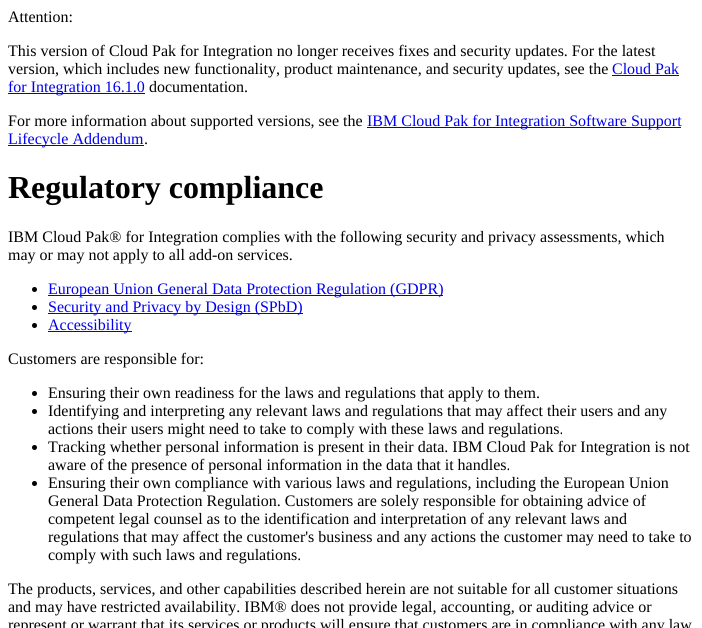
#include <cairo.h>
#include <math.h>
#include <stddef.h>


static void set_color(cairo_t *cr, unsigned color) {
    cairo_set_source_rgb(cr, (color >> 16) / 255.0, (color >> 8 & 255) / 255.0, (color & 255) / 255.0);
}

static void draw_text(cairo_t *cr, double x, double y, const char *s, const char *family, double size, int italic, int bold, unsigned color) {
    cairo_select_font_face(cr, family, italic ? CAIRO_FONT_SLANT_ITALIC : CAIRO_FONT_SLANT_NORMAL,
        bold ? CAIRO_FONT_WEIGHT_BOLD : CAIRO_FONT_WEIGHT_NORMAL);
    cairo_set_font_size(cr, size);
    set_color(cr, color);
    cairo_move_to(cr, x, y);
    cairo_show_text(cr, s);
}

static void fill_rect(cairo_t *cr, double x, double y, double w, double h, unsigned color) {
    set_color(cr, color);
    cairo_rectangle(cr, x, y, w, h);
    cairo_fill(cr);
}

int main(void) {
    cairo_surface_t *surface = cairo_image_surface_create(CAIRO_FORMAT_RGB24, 702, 628);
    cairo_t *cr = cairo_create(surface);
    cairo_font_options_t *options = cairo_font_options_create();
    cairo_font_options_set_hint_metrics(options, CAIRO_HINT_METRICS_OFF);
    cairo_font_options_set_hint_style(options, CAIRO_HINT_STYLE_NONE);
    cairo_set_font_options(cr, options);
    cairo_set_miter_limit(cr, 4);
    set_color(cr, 0xFFFFFF);
    cairo_paint(cr);
    draw_text(cr, 8, 22, "Attention:", "Liberation Serif", 16, 0, 0, 0x000000);
    draw_text(cr, 8, 56, "This version of Cloud Pak for Integration no longer receives fixes and security updates. For the latest", "Liberation Serif", 16, 0, 0, 0x000000);
    draw_text(cr, 8, 74, "version, which includes new functionality, product maintenance, and security updates, see the", "Liberation Serif", 16, 0, 0, 0x000000);
    draw_text(cr, 612, 74, "Cloud Pak", "Liberation Serif", 16, 0, 0, 0x0000EE);
    fill_rect(cr, 612, 75, 67, 1, 0x0000EE);
    fill_rect(cr, 8, 93, 137, 1, 0x0000EE);
    draw_text(cr, 8, 92, "for Integration 16.1.0", "Liberation Serif", 16, 0, 0, 0x0000EE);
    draw_text(cr, 149, 92, "documentation.", "Liberation Serif", 16, 0, 0, 0x000000);
    draw_text(cr, 8, 126, "For more information about supported versions, see the", "Liberation Serif", 16, 0, 0, 0x000000);
    fill_rect(cr, 367, 127, 314, 1, 0x0000EE);
    draw_text(cr, 367, 126, "IBM Cloud Pak for Integration Software Support", "Liberation Serif", 16, 0, 0, 0x0000EE);
    fill_rect(cr, 8, 145, 136, 1, 0x0000EE);
    draw_text(cr, 8, 144, "Lifecycle Addendum", "Liberation Serif", 16, 0, 0, 0x0000EE);
    draw_text(cr, 144, 144, ".", "Liberation Serif", 16, 0, 0, 0x000000);
    draw_text(cr, 8, 198, "Regulatory compliance", "Liberation Serif", 32, 0, 1, 0x000000);
    draw_text(cr, 8, 242, "IBM Cloud Pak® for Integration complies with the following security and privacy assessments, which", "Liberation Serif", 16, 0, 0, 0x000000);
    draw_text(cr, 8, 260, "may or may not apply to all add-on services.", "Liberation Serif", 16, 0, 0, 0x000000);
    cairo_new_path(cr);
    cairo_arc(cr, 34.5, 289.5, 2.5, 0, 2 * M_PI);
    cairo_fill(cr);
    fill_rect(cr, 48, 295, 395, 1, 0x0000EE);
    draw_text(cr, 48, 294, "European Union General Data Protection Regulation (GDPR)", "Liberation Serif", 16, 0, 0, 0x0000EE);
    set_color(cr, 0x000000);
    cairo_new_path(cr);
    cairo_arc(cr, 34.5, 307.5, 2.5, 0, 2 * M_PI);
    cairo_fill(cr);
    fill_rect(cr, 48, 313, 255, 1, 0x0000EE);
    draw_text(cr, 48, 312, "Security and Privacy by Design (SPbD)", "Liberation Serif", 16, 0, 0, 0x0000EE);
    set_color(cr, 0x000000);
    cairo_new_path(cr);
    cairo_arc(cr, 34.5, 325.5, 2.5, 0, 2 * M_PI);
    cairo_fill(cr);
    fill_rect(cr, 48, 331, 84, 1, 0x0000EE);
    draw_text(cr, 48, 330, "Accessibility", "Liberation Serif", 16, 0, 0, 0x0000EE);
    draw_text(cr, 8, 364, "Customers are responsible for:", "Liberation Serif", 16, 0, 0, 0x000000);
    cairo_new_path(cr);
    cairo_arc(cr, 34.5, 393.5, 2.5, 0, 2 * M_PI);
    cairo_fill(cr);
    draw_text(cr, 48, 398, "Ensuring their own readiness for the laws and regulations that apply to them.", "Liberation Serif", 16, 0, 0, 0x000000);
    cairo_new_path(cr);
    cairo_arc(cr, 34.5, 411.5, 2.5, 0, 2 * M_PI);
    cairo_fill(cr);
    draw_text(cr, 48, 416, "Identifying and interpreting any relevant laws and regulations that may affect their users and any", "Liberation Serif", 16, 0, 0, 0x000000);
    draw_text(cr, 48, 434, "actions their users might need to take to comply with these laws and regulations.", "Liberation Serif", 16, 0, 0, 0x000000);
    cairo_new_path(cr);
    cairo_arc(cr, 34.5, 447.5, 2.5, 0, 2 * M_PI);
    cairo_fill(cr);
    draw_text(cr, 48, 452, "Tracking whether personal information is present in their data. IBM Cloud Pak for Integration is not", "Liberation Serif", 16, 0, 0, 0x000000);
    draw_text(cr, 48, 470, "aware of the presence of personal information in the data that it handles.", "Liberation Serif", 16, 0, 0, 0x000000);
    cairo_new_path(cr);
    cairo_arc(cr, 34.5, 483.5, 2.5, 0, 2 * M_PI);
    cairo_fill(cr);
    draw_text(cr, 48, 488, "Ensuring their own compliance with various laws and regulations, including the European Union", "Liberation Serif", 16, 0, 0, 0x000000);
    draw_text(cr, 48, 506, "General Data Protection Regulation. Customers are solely responsible for obtaining advice of", "Liberation Serif", 16, 0, 0, 0x000000);
    draw_text(cr, 48, 524, "competent legal counsel as to the identification and interpretation of any relevant laws and", "Liberation Serif", 16, 0, 0, 0x000000);
    draw_text(cr, 48, 542, "regulations that may affect the customer's business and any actions the customer may need to take to", "Liberation Serif", 16, 0, 0, 0x000000);
    draw_text(cr, 48, 560, "comply with such laws and regulations.", "Liberation Serif", 16, 0, 0, 0x000000);
    draw_text(cr, 8, 594, "The products, services, and other capabilities described herein are not suitable for all customer situations", "Liberation Serif", 16, 0, 0, 0x000000);
    draw_text(cr, 8, 612, "and may have restricted availability. IBM® does not provide legal, accounting, or auditing advice or", "Liberation Serif", 16, 0, 0, 0x000000);
    draw_text(cr, 8, 630, "represent or warrant that its services or products will ensure that customers are in compliance with any law", "Liberation Serif", 16, 0, 0, 0x000000);
    cairo_surface_write_to_png(surface, "output.png");
    cairo_font_options_destroy(options);
    cairo_destroy(cr);
    cairo_surface_destroy(surface);
    return 0;
}
